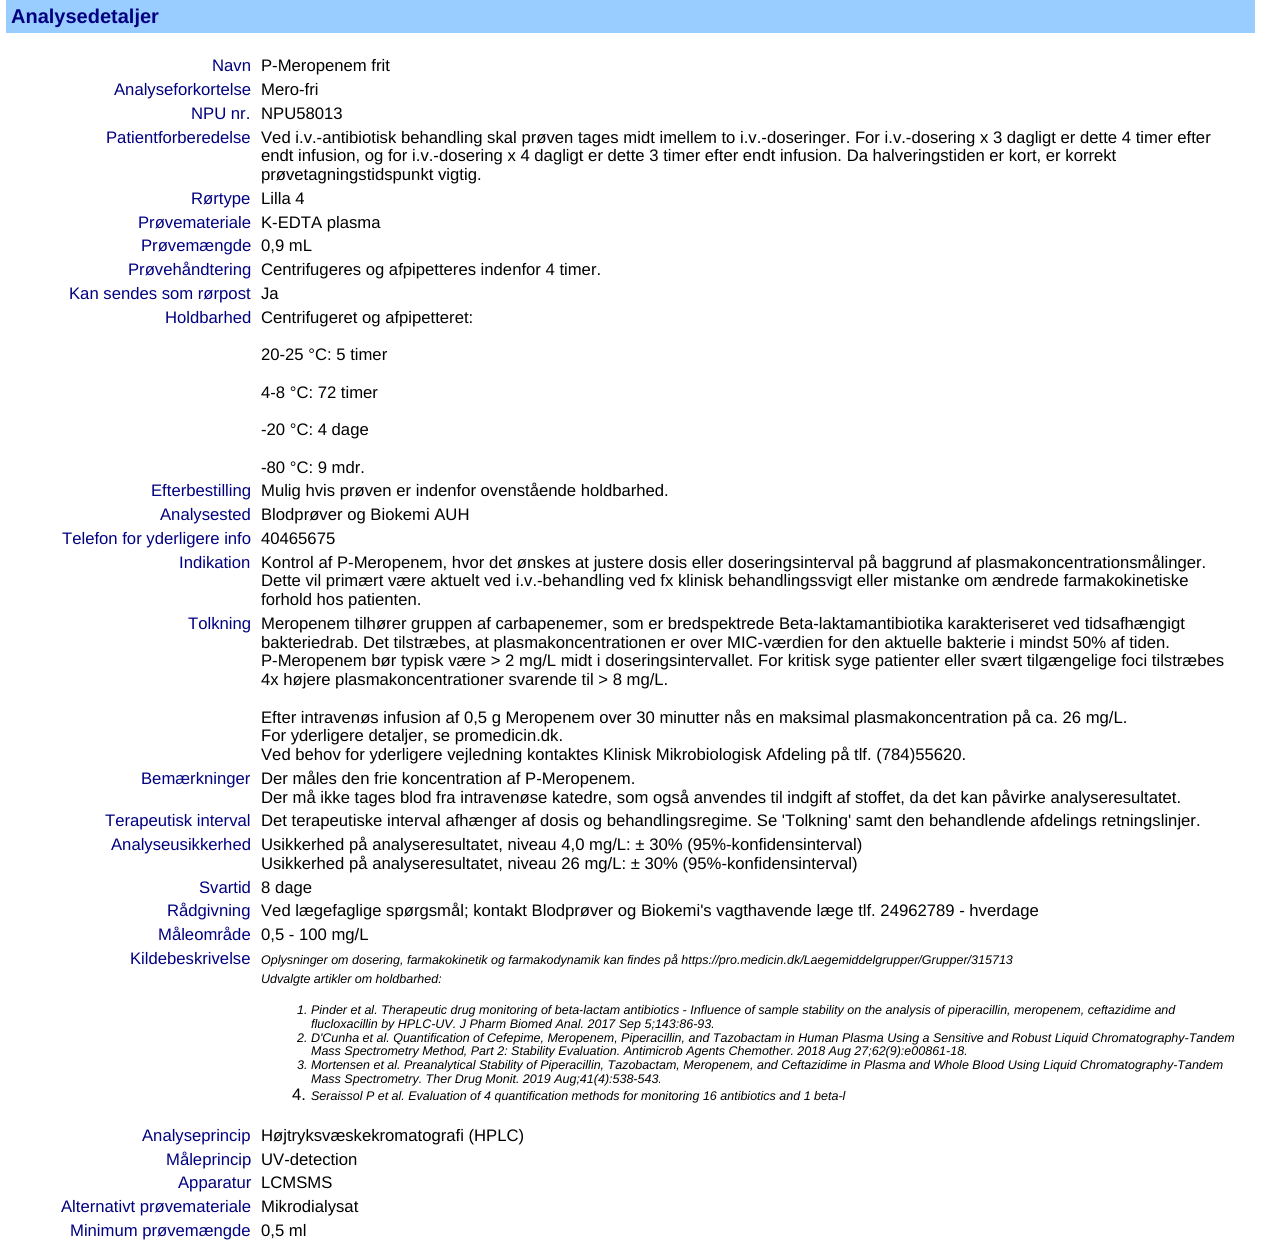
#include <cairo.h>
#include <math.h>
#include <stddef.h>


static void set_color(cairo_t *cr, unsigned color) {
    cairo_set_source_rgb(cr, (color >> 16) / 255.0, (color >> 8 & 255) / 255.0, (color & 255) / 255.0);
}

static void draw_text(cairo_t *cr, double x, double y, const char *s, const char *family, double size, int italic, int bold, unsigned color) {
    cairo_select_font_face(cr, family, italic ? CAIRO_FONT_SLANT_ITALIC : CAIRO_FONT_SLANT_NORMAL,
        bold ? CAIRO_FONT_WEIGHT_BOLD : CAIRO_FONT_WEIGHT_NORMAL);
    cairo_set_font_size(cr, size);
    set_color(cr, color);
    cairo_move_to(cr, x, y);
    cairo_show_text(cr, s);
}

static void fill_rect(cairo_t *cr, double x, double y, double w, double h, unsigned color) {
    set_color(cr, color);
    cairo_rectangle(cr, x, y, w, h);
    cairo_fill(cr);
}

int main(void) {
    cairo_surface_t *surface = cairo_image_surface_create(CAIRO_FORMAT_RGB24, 1264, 1255);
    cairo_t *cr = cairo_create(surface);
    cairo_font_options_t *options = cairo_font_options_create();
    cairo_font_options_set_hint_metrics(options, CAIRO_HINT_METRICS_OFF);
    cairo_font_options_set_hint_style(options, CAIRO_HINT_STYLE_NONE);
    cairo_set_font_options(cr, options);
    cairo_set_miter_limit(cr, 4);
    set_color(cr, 0xFFFFFF);
    cairo_paint(cr);
    fill_rect(cr, 6, 0, 1249, 33, 0x99CCFF);
    draw_text(cr, 11, 23, "Analysedetaljer", "Liberation Sans", 20, 0, 1, 0x000080);
    draw_text(cr, 212, 71, "Navn", "Liberation Sans", 16.67, 0, 0, 0x000080);
    draw_text(cr, 261, 71, "P-Meropenem frit", "Liberation Sans", 16.67, 0, 0, 0x000000);
    draw_text(cr, 114, 95, "Analyseforkortelse", "Liberation Sans", 16.67, 0, 0, 0x000080);
    draw_text(cr, 261, 95, "Mero-fri", "Liberation Sans", 16.67, 0, 0, 0x000000);
    draw_text(cr, 191, 119, "NPU nr.", "Liberation Sans", 16.67, 0, 0, 0x000080);
    draw_text(cr, 261, 119, "NPU58013", "Liberation Sans", 16.67, 0, 0, 0x000000);
    draw_text(cr, 106, 143, "Patientforberedelse", "Liberation Sans", 16.67, 0, 0, 0x000080);
    draw_text(cr, 261, 143, "Ved i.v.-antibiotisk behandling skal prøven tages midt imellem to i.v.-doseringer. For i.v.-dosering x 3 dagligt er dette 4 timer efter", "Liberation Sans", 16.67, 0, 0, 0x000000);
    draw_text(cr, 261, 161, "endt infusion, og for i.v.-dosering x 4 dagligt er dette 3 timer efter endt infusion. Da halveringstiden er kort, er korrekt", "Liberation Sans", 16.67, 0, 0, 0x000000);
    draw_text(cr, 261, 180, "prøvetagningstidspunkt vigtig.", "Liberation Sans", 16.67, 0, 0, 0x000000);
    draw_text(cr, 191, 204, "Rørtype", "Liberation Sans", 16.67, 0, 0, 0x000080);
    draw_text(cr, 261, 204, "Lilla 4", "Liberation Sans", 16.67, 0, 0, 0x000000);
    draw_text(cr, 138, 228, "Prøvemateriale", "Liberation Sans", 16.67, 0, 0, 0x000080);
    draw_text(cr, 261, 228, "K-EDTA plasma", "Liberation Sans", 16.67, 0, 0, 0x000000);
    draw_text(cr, 141, 251, "Prøvemængde", "Liberation Sans", 16.67, 0, 0, 0x000080);
    draw_text(cr, 261, 251, "0,9 mL", "Liberation Sans", 16.67, 0, 0, 0x000000);
    draw_text(cr, 128, 275, "Prøvehåndtering", "Liberation Sans", 16.67, 0, 0, 0x000080);
    draw_text(cr, 261, 275, "Centrifugeres og afpipetteres indenfor 4 timer.", "Liberation Sans", 16.67, 0, 0, 0x000000);
    draw_text(cr, 69, 299, "Kan sendes som rørpost", "Liberation Sans", 16.67, 0, 0, 0x000080);
    draw_text(cr, 261, 299, "Ja", "Liberation Sans", 16.67, 0, 0, 0x000000);
    draw_text(cr, 165, 323, "Holdbarhed", "Liberation Sans", 16.67, 0, 0, 0x000080);
    draw_text(cr, 261, 323, "Centrifugeret og afpipetteret:", "Liberation Sans", 16.67, 0, 0, 0x000000);
    draw_text(cr, 261, 360, "20-25 °C: 5 timer", "Liberation Sans", 16.67, 0, 0, 0x000000);
    draw_text(cr, 261, 398, "4-8 °C: 72 timer", "Liberation Sans", 16.67, 0, 0, 0x000000);
    draw_text(cr, 261, 435, "-20 °C: 4 dage", "Liberation Sans", 16.67, 0, 0, 0x000000);
    draw_text(cr, 261, 473, "-80 °C: 9 mdr.", "Liberation Sans", 16.67, 0, 0, 0x000000);
    draw_text(cr, 151, 496, "Efterbestilling", "Liberation Sans", 16.67, 0, 0, 0x000080);
    draw_text(cr, 261, 496, "Mulig hvis prøven er indenfor ovenstående holdbarhed.", "Liberation Sans", 16.67, 0, 0, 0x000000);
    draw_text(cr, 160, 520, "Analysested", "Liberation Sans", 16.67, 0, 0, 0x000080);
    draw_text(cr, 261, 520, "Blodprøver og Biokemi AUH", "Liberation Sans", 16.67, 0, 0, 0x000000);
    draw_text(cr, 62, 544, "Telefon for yderligere info", "Liberation Sans", 16.67, 0, 0, 0x000080);
    draw_text(cr, 261, 544, "40465675", "Liberation Sans", 16.67, 0, 0, 0x000000);
    draw_text(cr, 179, 568, "Indikation", "Liberation Sans", 16.67, 0, 0, 0x000080);
    draw_text(cr, 261, 568, "Kontrol af P-Meropenem, hvor det ønskes at justere dosis eller doseringsinterval på baggrund af plasmakoncentrationsmålinger.", "Liberation Sans", 16.67, 0, 0, 0x000000);
    draw_text(cr, 261, 586, "Dette vil primært være aktuelt ved i.v.-behandling ved fx klinisk behandlingssvigt eller mistanke om ændrede farmakokinetiske", "Liberation Sans", 16.67, 0, 0, 0x000000);
    draw_text(cr, 261, 605, "forhold hos patienten.", "Liberation Sans", 16.67, 0, 0, 0x000000);
    draw_text(cr, 188, 629, "Tolkning", "Liberation Sans", 16.67, 0, 0, 0x000080);
    draw_text(cr, 261, 629, "Meropenem tilhører gruppen af carbapenemer, som er bredspektrede Beta-laktamantibiotika karakteriseret ved tidsafhængigt", "Liberation Sans", 16.67, 0, 0, 0x000000);
    draw_text(cr, 261, 648, "bakteriedrab. Det tilstræbes, at plasmakoncentrationen er over MIC-værdien for den aktuelle bakterie i mindst 50% af tiden.", "Liberation Sans", 16.67, 0, 0, 0x000000);
    draw_text(cr, 261, 666, "P-Meropenem bør typisk være > 2 mg/L midt i doseringsintervallet. For kritisk syge patienter eller svært tilgængelige foci tilstræbes", "Liberation Sans", 16.67, 0, 0, 0x000000);
    draw_text(cr, 261, 685, "4x højere plasmakoncentrationer svarende til > 8 mg/L.", "Liberation Sans", 16.67, 0, 0, 0x000000);
    draw_text(cr, 261, 723, "Efter intravenøs infusion af 0,5 g Meropenem over 30 minutter nås en maksimal plasmakoncentration på ca. 26 mg/L.", "Liberation Sans", 16.67, 0, 0, 0x000000);
    draw_text(cr, 261, 741, "For yderligere detaljer, se promedicin.dk.", "Liberation Sans", 16.67, 0, 0, 0x000000);
    draw_text(cr, 261, 760, "Ved behov for yderligere vejledning kontaktes Klinisk Mikrobiologisk Afdeling på tlf. (784)55620.", "Liberation Sans", 16.67, 0, 0, 0x000000);
    draw_text(cr, 141, 784, "Bemærkninger", "Liberation Sans", 16.67, 0, 0, 0x000080);
    draw_text(cr, 261, 784, "Der måles den frie koncentration af P-Meropenem.", "Liberation Sans", 16.67, 0, 0, 0x000000);
    draw_text(cr, 261, 803, "Der må ikke tages blod fra intravenøse katedre, som også anvendes til indgift af stoffet, da det kan påvirke analyseresultatet.", "Liberation Sans", 16.67, 0, 0, 0x000000);
    draw_text(cr, 105, 826, "Terapeutisk interval", "Liberation Sans", 16.67, 0, 0, 0x000080);
    draw_text(cr, 261, 826, "Det terapeutiske interval afhænger af dosis og behandlingsregime. Se 'Tolkning' samt den behandlende afdelings retningslinjer.", "Liberation Sans", 16.67, 0, 0, 0x000000);
    draw_text(cr, 111, 850, "Analyseusikkerhed", "Liberation Sans", 16.67, 0, 0, 0x000080);
    draw_text(cr, 261, 850, "Usikkerhed på analyseresultatet, niveau 4,0 mg/L: ± 30% (95%-konfidensinterval)", "Liberation Sans", 16.67, 0, 0, 0x000000);
    draw_text(cr, 261, 869, "Usikkerhed på analyseresultatet, niveau 26 mg/L: ± 30% (95%-konfidensinterval)", "Liberation Sans", 16.67, 0, 0, 0x000000);
    draw_text(cr, 199, 893, "Svartid", "Liberation Sans", 16.67, 0, 0, 0x000080);
    draw_text(cr, 261, 893, "8 dage", "Liberation Sans", 16.67, 0, 0, 0x000000);
    draw_text(cr, 167, 916, "Rådgivning", "Liberation Sans", 16.67, 0, 0, 0x000080);
    draw_text(cr, 261, 916, "Ved lægefaglige spørgsmål; kontakt Blodprøver og Biokemi's vagthavende læge tlf. 24962789 - hverdage", "Liberation Sans", 16.67, 0, 0, 0x000000);
    draw_text(cr, 158, 940, "Måleområde", "Liberation Sans", 16.67, 0, 0, 0x000080);
    draw_text(cr, 261, 940, "0,5 - 100 mg/L", "Liberation Sans", 16.67, 0, 0, 0x000000);
    draw_text(cr, 130, 964, "Kildebeskrivelse", "Liberation Sans", 16.67, 0, 0, 0x000080);
    draw_text(cr, 261, 964, "Oplysninger om dosering, farmakokinetik og farmakodynamik kan findes på https://pro.medicin.dk/Laegemiddelgrupper/Grupper/315713", "Liberation Sans", 12.5, 1, 0, 0x000000);
    draw_text(cr, 261, 983, "Udvalgte artikler om holdbarhed:", "Liberation Sans", 12.5, 1, 0, 0x000000);
    draw_text(cr, 297, 1014, "1. Pinder et al. Therapeutic drug monitoring of beta-lactam antibiotics - Influence of sample stability on the analysis of piperacillin, meropenem, ceftazidime and", "Liberation Sans", 12.5, 1, 0, 0x000000);
    draw_text(cr, 311, 1028, "flucloxacillin by HPLC-UV. J Pharm Biomed Anal. 2017 Sep 5;143:86-93.", "Liberation Sans", 12.5, 1, 0, 0x000000);
    draw_text(cr, 297, 1042, "2. D'Cunha et al. Quantification of Cefepime, Meropenem, Piperacillin, and Tazobactam in Human Plasma Using a Sensitive and Robust Liquid Chromatography-Tandem", "Liberation Sans", 12.5, 1, 0, 0x000000);
    draw_text(cr, 311, 1055, "Mass Spectrometry Method, Part 2: Stability Evaluation. Antimicrob Agents Chemother. 2018 Aug 27;62(9):e00861-18.", "Liberation Sans", 12.5, 1, 0, 0x000000);
    draw_text(cr, 297, 1069, "3. Mortensen et al. Preanalytical Stability of Piperacillin, Tazobactam, Meropenem, and Ceftazidime in Plasma and Whole Blood Using Liquid Chromatography-Tandem", "Liberation Sans", 12.5, 1, 0, 0x000000);
    draw_text(cr, 311, 1083, "Mass Spectrometry. Ther Drug Monit. 2019 Aug;41(4):538-543.", "Liberation Sans", 12.5, 1, 0, 0x000000);
    draw_text(cr, 292, 1100, "4.", "Liberation Sans", 16.67, 0, 0, 0x000000);
    draw_text(cr, 311, 1100, "Seraissol P et al. Evaluation of 4 quantification methods for monitoring 16 antibiotics and 1 beta-l", "Liberation Sans", 12.5, 1, 0, 0x000000);
    draw_text(cr, 142, 1141, "Analyseprincip", "Liberation Sans", 16.67, 0, 0, 0x000080);
    draw_text(cr, 261, 1141, "Højtryksvæskekromatografi (HPLC)", "Liberation Sans", 16.67, 0, 0, 0x000000);
    draw_text(cr, 166, 1165, "Måleprincip", "Liberation Sans", 16.67, 0, 0, 0x000080);
    draw_text(cr, 261, 1165, "UV-detection", "Liberation Sans", 16.67, 0, 0, 0x000000);
    draw_text(cr, 178, 1188, "Apparatur", "Liberation Sans", 16.67, 0, 0, 0x000080);
    draw_text(cr, 261, 1188, "LCMSMS", "Liberation Sans", 16.67, 0, 0, 0x000000);
    draw_text(cr, 61, 1212, "Alternativt prøvemateriale", "Liberation Sans", 16.67, 0, 0, 0x000080);
    draw_text(cr, 261, 1212, "Mikrodialysat", "Liberation Sans", 16.67, 0, 0, 0x000000);
    draw_text(cr, 70, 1236, "Minimum prøvemængde", "Liberation Sans", 16.67, 0, 0, 0x000080);
    draw_text(cr, 261, 1236, "0,5 ml", "Liberation Sans", 16.67, 0, 0, 0x000000);
    cairo_surface_write_to_png(surface, "output.png");
    cairo_font_options_destroy(options);
    cairo_destroy(cr);
    cairo_surface_destroy(surface);
    return 0;
}
